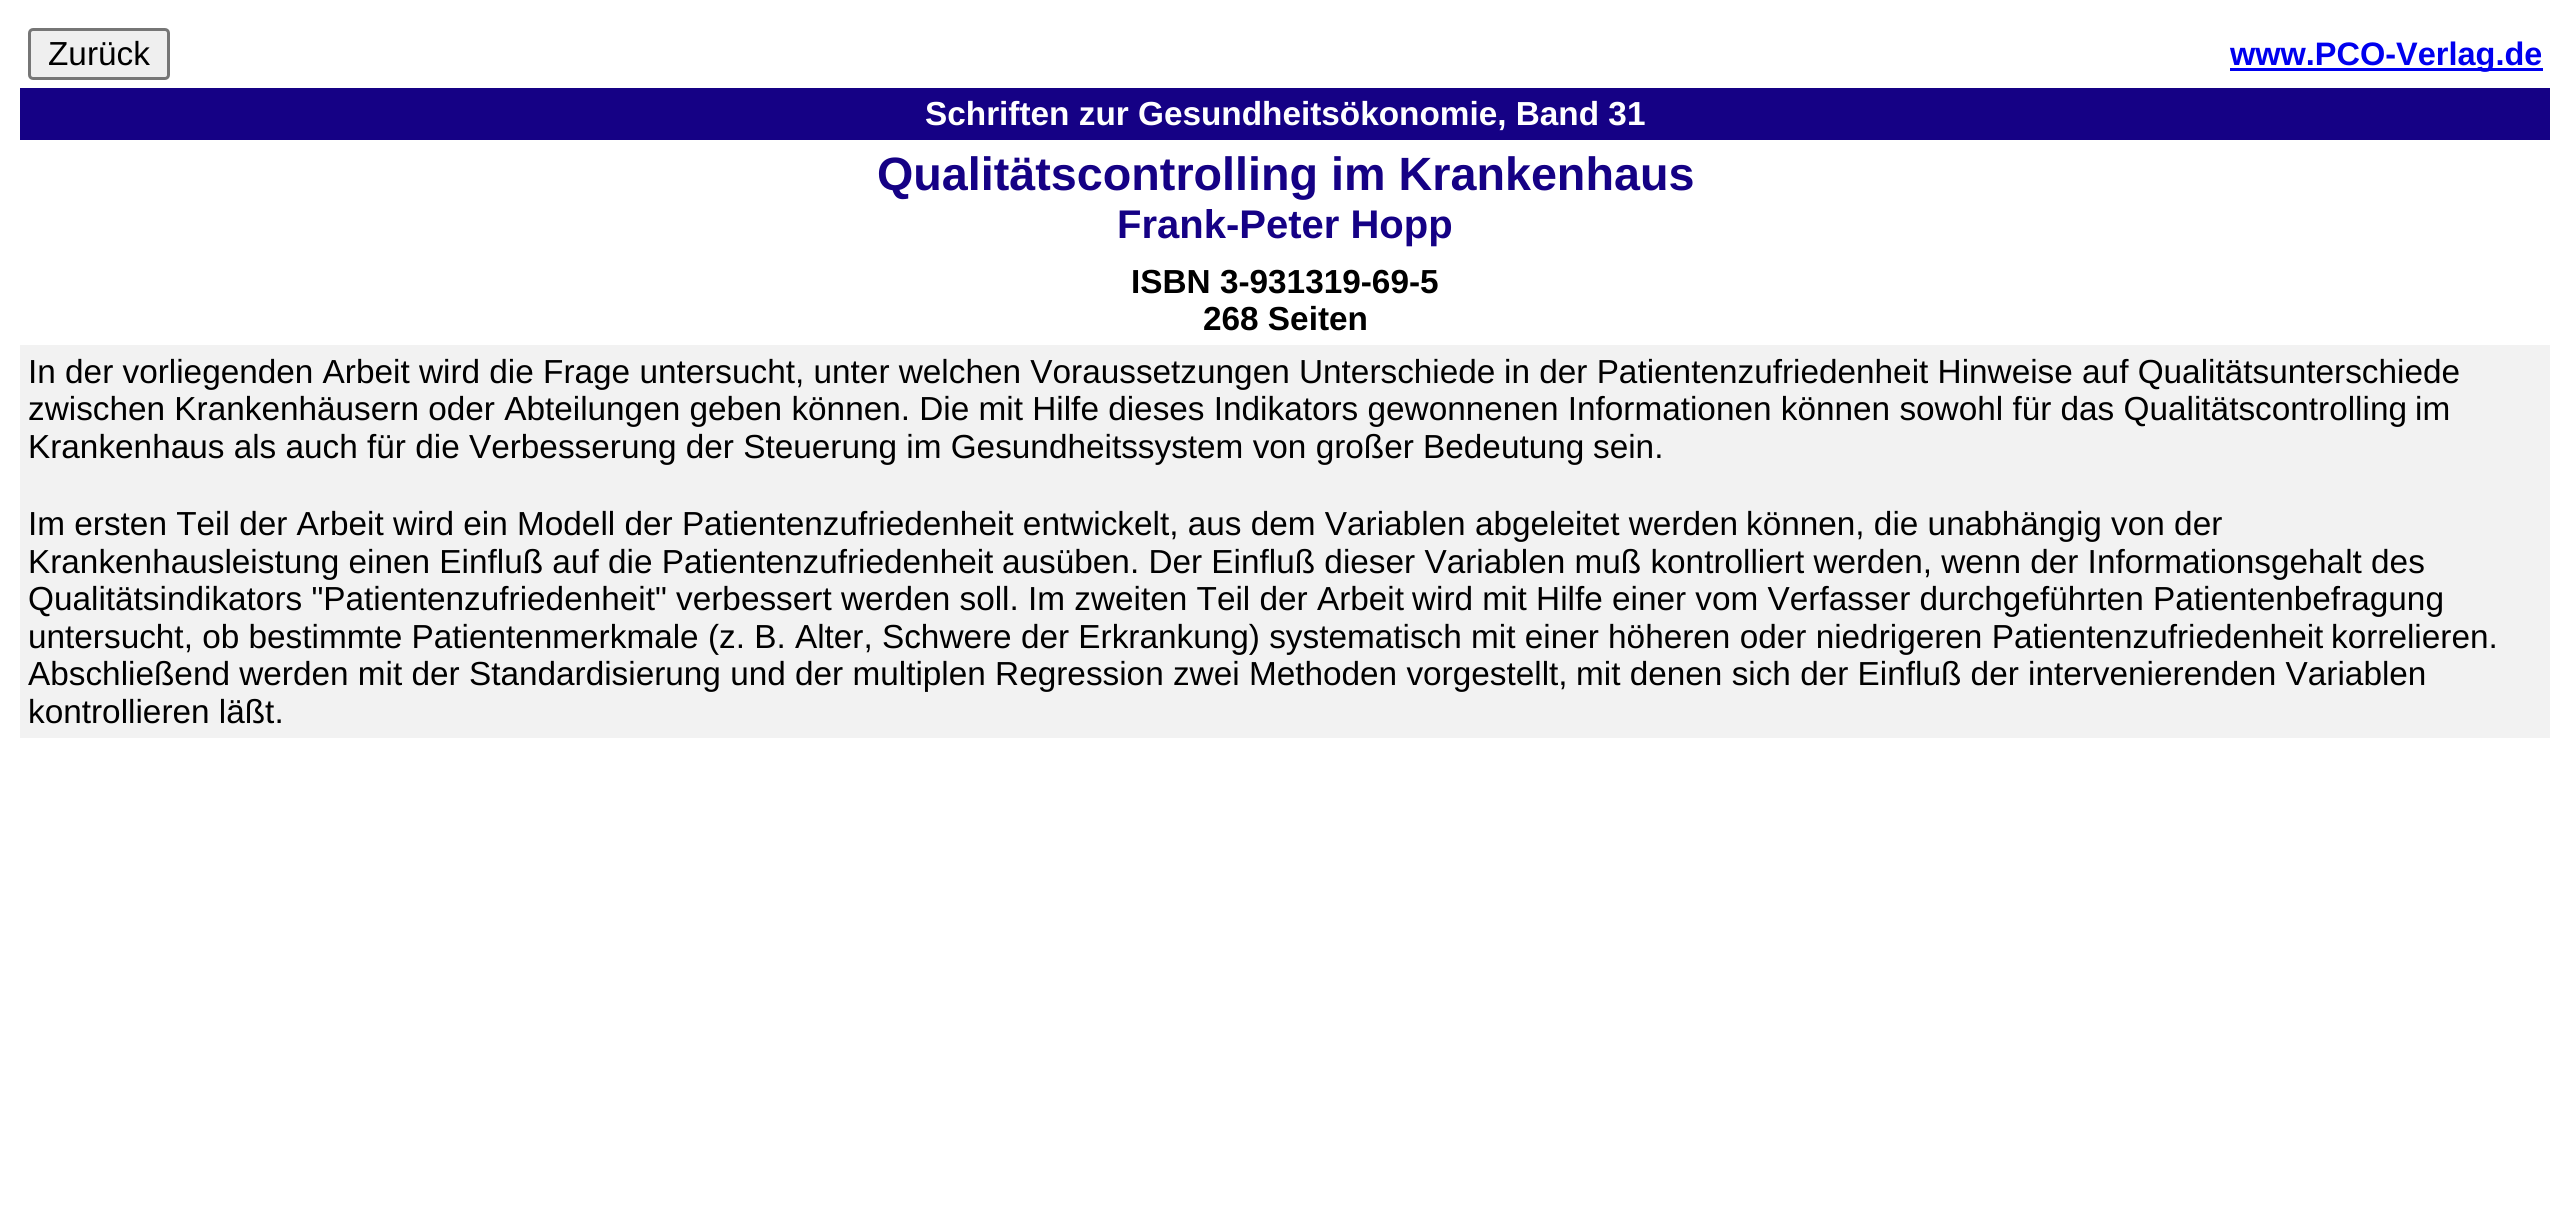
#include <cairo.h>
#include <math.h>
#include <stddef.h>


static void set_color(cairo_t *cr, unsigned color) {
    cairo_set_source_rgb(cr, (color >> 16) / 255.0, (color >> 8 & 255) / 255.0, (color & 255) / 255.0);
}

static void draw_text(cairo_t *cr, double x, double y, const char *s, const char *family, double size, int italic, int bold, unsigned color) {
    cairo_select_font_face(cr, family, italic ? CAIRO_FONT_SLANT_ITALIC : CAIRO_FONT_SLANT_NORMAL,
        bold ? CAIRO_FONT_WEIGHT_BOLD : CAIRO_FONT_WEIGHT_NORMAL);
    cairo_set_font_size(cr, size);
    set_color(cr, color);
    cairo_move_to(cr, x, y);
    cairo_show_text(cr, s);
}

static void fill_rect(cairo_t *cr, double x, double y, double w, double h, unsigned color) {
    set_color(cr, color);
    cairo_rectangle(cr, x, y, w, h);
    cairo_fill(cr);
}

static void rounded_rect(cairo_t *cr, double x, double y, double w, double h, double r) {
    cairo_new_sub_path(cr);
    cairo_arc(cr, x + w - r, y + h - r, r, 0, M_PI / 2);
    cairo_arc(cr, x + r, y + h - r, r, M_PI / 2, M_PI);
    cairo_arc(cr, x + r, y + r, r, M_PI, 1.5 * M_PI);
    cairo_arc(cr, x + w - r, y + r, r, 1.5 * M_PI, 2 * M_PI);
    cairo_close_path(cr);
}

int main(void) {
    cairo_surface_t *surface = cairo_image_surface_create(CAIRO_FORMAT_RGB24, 2570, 1205);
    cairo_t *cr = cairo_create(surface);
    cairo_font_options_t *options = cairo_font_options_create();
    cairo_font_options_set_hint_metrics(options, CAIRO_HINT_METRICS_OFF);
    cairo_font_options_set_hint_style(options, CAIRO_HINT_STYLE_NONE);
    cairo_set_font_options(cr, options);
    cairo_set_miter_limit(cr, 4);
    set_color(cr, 0xFFFFFF);
    cairo_paint(cr);
    set_color(cr, 0xEFEFEF);
    rounded_rect(cr, 29.5, 29.5, 139, 49, 3.5);
    cairo_fill_preserve(cr);
    set_color(cr, 0x767676);
    cairo_set_line_width(cr, 3);
    cairo_stroke(cr);
    draw_text(cr, 48, 65, "Zurück", "Liberation Sans", 33.33, 0, 0, 0x000000);
    fill_rect(cr, 2230, 68, 313, 3, 0x0000EE);
    draw_text(cr, 2230, 65, "www.PCO-Verlag.de", "Liberation Sans", 32.5, 0, 1, 0x0000EE);
    fill_rect(cr, 20, 88, 2530, 52, 0x150185);
    draw_text(cr, 925, 125, "Schriften zur Gesundheitsökonomie, Band 31", "Liberation Sans", 33.33, 0, 1, 0xFFFFFF);
    draw_text(cr, 877, 190, "Qualitätscontrolling im Krankenhaus", "Liberation Sans", 46.7, 0, 1, 0x150185);
    draw_text(cr, 1117, 238, "Frank-Peter Hopp", "Liberation Sans", 40, 0, 1, 0x150185);
    draw_text(cr, 1131, 293, "ISBN 3-931319-69-5", "Liberation Sans", 33.33, 0, 1, 0x000000);
    draw_text(cr, 1203, 330, "268 Seiten", "Liberation Sans", 33.33, 0, 1, 0x000000);
    fill_rect(cr, 20, 345, 2530, 393, 0xF2F2F2);
    draw_text(cr, 28, 383, "In der vorliegenden Arbeit wird die Frage untersucht, unter welchen Voraussetzungen Unterschiede", "Liberation Sans", 33.33, 0, 0, 0x000000);
    draw_text(cr, 1504, 383, "in der Patientenzufriedenheit Hinweise auf Qualitätsunterschiede", "Liberation Sans", 33.33, 0, 0, 0x000000);
    draw_text(cr, 28, 420, "zwischen Krankenhäusern oder Abteilungen geben können. Die mit Hilfe dieses Indikators gewonnenen Informationen können sowohl für das Qualitätscontrolling", "Liberation Sans", 33.33, 0, 0, 0x000000);
    draw_text(cr, 2415, 420, "im", "Liberation Sans", 33.33, 0, 0, 0x000000);
    draw_text(cr, 28, 458, "Krankenhaus als auch für die Verbesserung der Steuerung im Gesundheitssystem von großer Bedeutung", "Liberation Sans", 33.33, 0, 0, 0x000000);
    draw_text(cr, 1593, 458, "sein.", "Liberation Sans", 33.33, 0, 0, 0x000000);
    draw_text(cr, 28, 535, "Im ersten Teil der Arbeit wird ein Modell der Patientenzufriedenheit entwickelt, aus dem Variablen abgeleitet werden", "Liberation Sans", 33.33, 0, 0, 0x000000);
    draw_text(cr, 1746, 535, "können, die unabhängig von der", "Liberation Sans", 33.33, 0, 0, 0x000000);
    draw_text(cr, 28, 573, "Krankenhausleistung einen Einfluß auf die Patientenzufriedenheit", "Liberation Sans", 33.33, 0, 0, 0x000000);
    draw_text(cr, 1002, 573, "ausüben. Der Einfluß dieser Variablen muß kontrolliert werden, wenn der Informationsgehalt des", "Liberation Sans", 33.33, 0, 0, 0x000000);
    draw_text(cr, 28, 610, "Qualitätsindikators \"Patientenzufriedenheit\" verbessert werden soll. Im zweiten Teil der Arbeit", "Liberation Sans", 33.33, 0, 0, 0x000000);
    draw_text(cr, 1412, 610, "wird mit Hilfe einer vom Verfasser durchgeführten Patientenbefragung", "Liberation Sans", 33.33, 0, 0, 0x000000);
    draw_text(cr, 28, 648, "untersucht, ob bestimmte Patientenmerkmale (z. B. Alter, Schwere der Erkrankung) systematisch mit einer höheren oder niedrigeren Patientenzufriedenheit", "Liberation Sans", 33.33, 0, 0, 0x000000);
    draw_text(cr, 2331, 648, "korrelieren.", "Liberation Sans", 33.33, 0, 0, 0x000000);
    draw_text(cr, 28, 685, "Abschließend werden mit der Standardisierung und der multiplen Regression zwei Methoden vorgestellt,", "Liberation Sans", 33.33, 0, 0, 0x000000);
    draw_text(cr, 1576, 685, "mit denen sich der Einfluß der intervenierenden Variablen", "Liberation Sans", 33.33, 0, 0, 0x000000);
    draw_text(cr, 28, 723, "kontrollieren läßt.", "Liberation Sans", 33.33, 0, 0, 0x000000);
    cairo_surface_write_to_png(surface, "output.png");
    cairo_font_options_destroy(options);
    cairo_destroy(cr);
    cairo_surface_destroy(surface);
    return 0;
}
